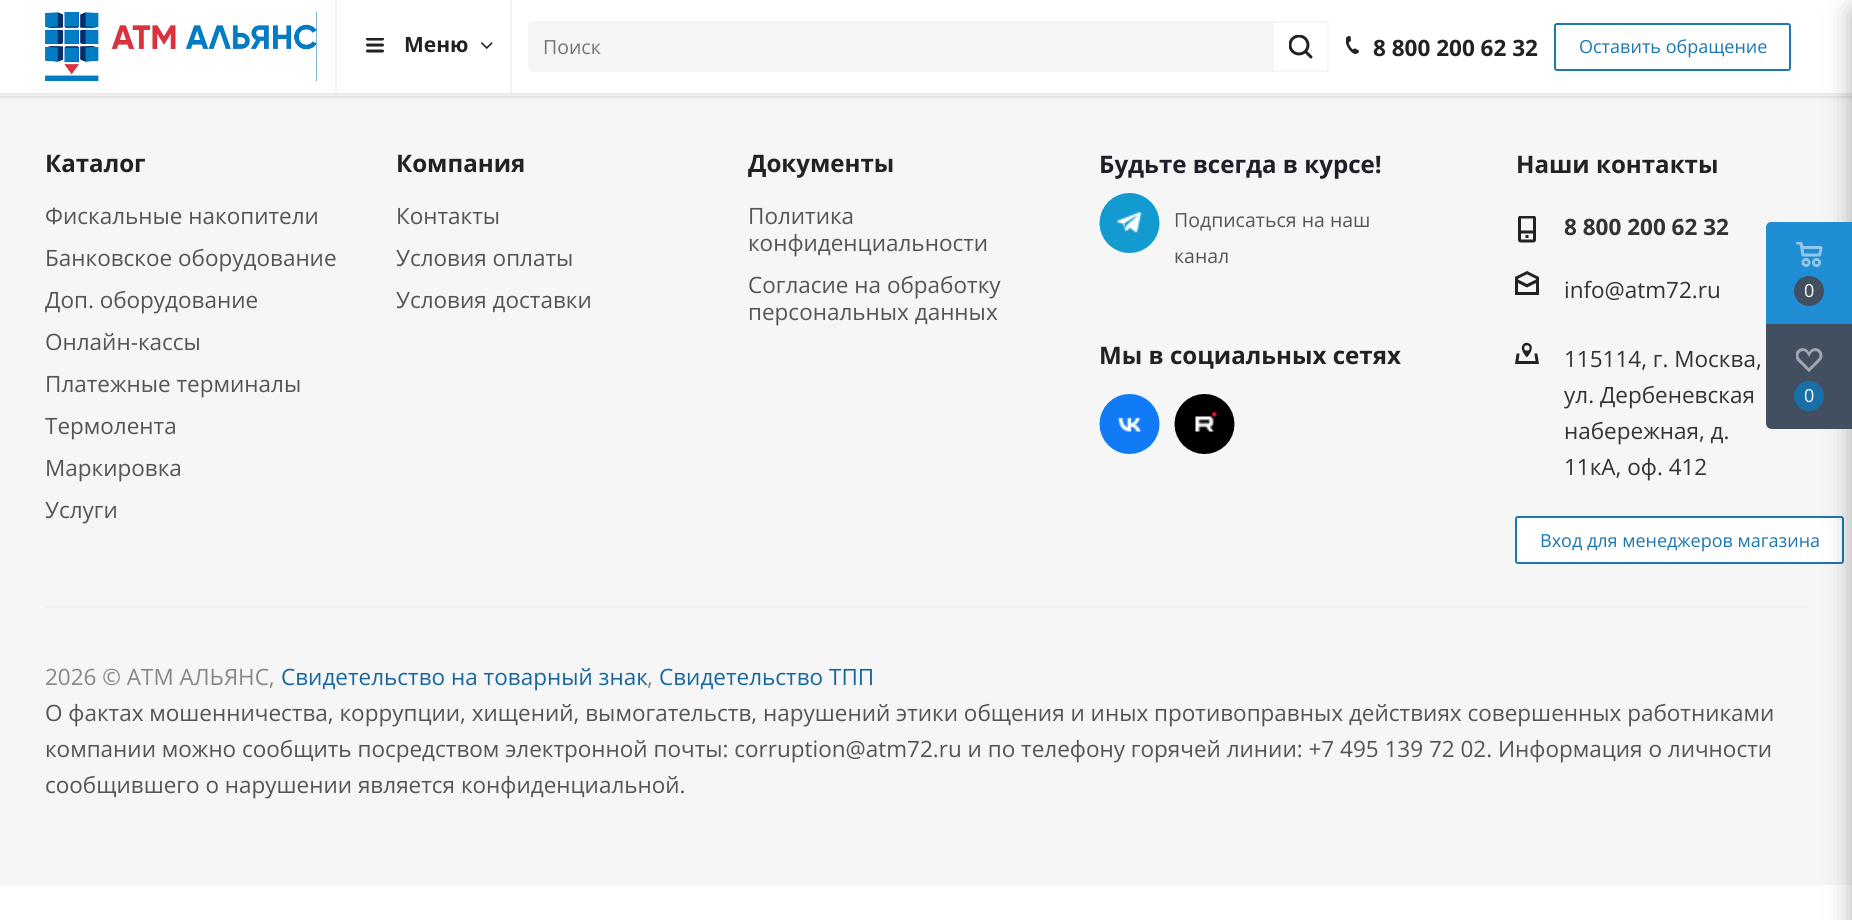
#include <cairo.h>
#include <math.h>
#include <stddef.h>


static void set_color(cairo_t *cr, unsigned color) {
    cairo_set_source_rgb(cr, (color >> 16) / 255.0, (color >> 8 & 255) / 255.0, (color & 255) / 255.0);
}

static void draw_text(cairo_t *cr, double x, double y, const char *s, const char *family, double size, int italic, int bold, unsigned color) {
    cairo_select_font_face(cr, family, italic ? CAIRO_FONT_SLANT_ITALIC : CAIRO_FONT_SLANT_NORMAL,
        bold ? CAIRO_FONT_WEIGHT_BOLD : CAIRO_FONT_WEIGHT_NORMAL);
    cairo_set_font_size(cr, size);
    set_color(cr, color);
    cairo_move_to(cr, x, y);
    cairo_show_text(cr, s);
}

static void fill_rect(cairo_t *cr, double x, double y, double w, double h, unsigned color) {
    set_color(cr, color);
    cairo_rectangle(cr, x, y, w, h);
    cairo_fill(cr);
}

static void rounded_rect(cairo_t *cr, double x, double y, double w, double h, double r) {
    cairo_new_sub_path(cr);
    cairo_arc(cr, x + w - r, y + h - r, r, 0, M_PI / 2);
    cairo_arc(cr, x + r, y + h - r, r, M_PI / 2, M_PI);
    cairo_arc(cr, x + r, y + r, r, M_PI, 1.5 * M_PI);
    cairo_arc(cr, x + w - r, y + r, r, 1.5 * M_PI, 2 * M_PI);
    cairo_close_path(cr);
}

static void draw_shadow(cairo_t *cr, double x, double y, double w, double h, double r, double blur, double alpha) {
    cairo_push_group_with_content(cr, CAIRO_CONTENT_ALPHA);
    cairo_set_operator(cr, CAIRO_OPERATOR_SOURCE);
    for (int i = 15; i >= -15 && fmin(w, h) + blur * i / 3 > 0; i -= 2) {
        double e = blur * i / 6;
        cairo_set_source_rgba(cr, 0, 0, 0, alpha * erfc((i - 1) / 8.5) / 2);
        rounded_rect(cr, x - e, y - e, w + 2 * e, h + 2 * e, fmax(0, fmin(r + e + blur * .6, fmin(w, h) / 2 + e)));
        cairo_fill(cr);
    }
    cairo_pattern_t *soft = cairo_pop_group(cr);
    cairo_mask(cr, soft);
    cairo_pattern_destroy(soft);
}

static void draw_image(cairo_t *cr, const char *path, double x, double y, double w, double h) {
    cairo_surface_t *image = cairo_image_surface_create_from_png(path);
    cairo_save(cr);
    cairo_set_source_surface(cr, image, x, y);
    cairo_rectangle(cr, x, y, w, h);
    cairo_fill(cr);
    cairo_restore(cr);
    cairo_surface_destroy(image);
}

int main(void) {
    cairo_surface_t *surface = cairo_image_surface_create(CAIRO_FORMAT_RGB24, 1852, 920);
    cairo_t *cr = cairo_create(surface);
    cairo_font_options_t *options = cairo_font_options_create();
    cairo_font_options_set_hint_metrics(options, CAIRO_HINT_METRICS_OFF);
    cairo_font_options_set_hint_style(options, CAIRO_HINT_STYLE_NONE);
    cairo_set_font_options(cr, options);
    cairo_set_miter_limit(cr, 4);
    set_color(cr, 0xFFFFFF);
    cairo_paint(cr);
    fill_rect(cr, 0, 96, 1852, 2, 0xEEEEEE);
    fill_rect(cr, 0, 98, 1852, 787, 0xF6F6F7);
    set_color(cr, 0x000000);
    draw_shadow(cr, 0, 2, 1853, 93, 0, 4, 0.14);
    fill_rect(cr, 0, 0, 1852, 93, 0xFFFFFF);
    fill_rect(cr, 335, 0, 2, 93, 0xF2F2F2);
    fill_rect(cr, 316, 12, 1, 69, 0x1973AE);
    draw_image(cr, "assets/img1.png", 45, 12, 272, 69);
    fill_rect(cr, 510, 0, 2, 93, 0xF2F2F2);
    draw_image(cr, "assets/img2.png", 366, 38, 18, 15);
    draw_text(cr, 404, 52, "Меню", "Open Sans", 21, 0, 1, 0x222222);
    draw_image(cr, "assets/img3.png", 481, 42, 12, 7);
    set_color(cr, 0xF5F5F5);
    rounded_rect(cr, 528, 21, 801, 51, 5);
    cairo_fill(cr);
    draw_text(cr, 543, 54, "Поиск", "Open Sans", 19.5, 0, 0, 0x757575);
    set_color(cr, 0xFFFFFF);
    rounded_rect(cr, 1273, 22, 55, 49, 2);
    cairo_fill_preserve(cr);
    set_color(cr, 0xF5F5F5);
    cairo_stroke(cr);
    draw_image(cr, "assets/img4.png", 1289, 35, 24, 24);
    draw_image(cr, "assets/img5.png", 1346, 36, 13, 18);
    draw_text(cr, 1373, 56, "8 800 200 62 32", "Open Sans", 22.5, 0, 1, 0x222222);
    rounded_rect(cr, 1555, 24, 235, 46, 2);
    set_color(cr, 0x1B76B1);
    cairo_stroke(cr);
    draw_text(cr, 1579, 53, "Оставить обращение", "Open Sans", 18, 0, 0, 0x1B76B1);
    draw_text(cr, 45, 172, "Каталог", "Open Sans", 24.1, 0, 1, 0x222222);
    draw_text(cr, 45, 224, "Фискальные накопители", "Open Sans", 22.5, 0, 0, 0x555555);
    draw_text(cr, 45, 266, "Банковское оборудование", "Open Sans", 22.5, 0, 0, 0x555555);
    draw_text(cr, 45, 308, "Доп. оборудование", "Open Sans", 22.5, 0, 0, 0x555555);
    draw_text(cr, 45, 350, "Онлайн-кассы", "Open Sans", 22.5, 0, 0, 0x555555);
    draw_text(cr, 45, 392, "Платежные терминалы", "Open Sans", 22.5, 0, 0, 0x555555);
    draw_text(cr, 45, 434, "Термолента", "Open Sans", 22.5, 0, 0, 0x555555);
    draw_text(cr, 45, 476, "Маркировка", "Open Sans", 22.5, 0, 0, 0x555555);
    draw_text(cr, 45, 518, "Услуги", "Open Sans", 22.5, 0, 0, 0x555555);
    draw_text(cr, 396, 172, "Компания", "Open Sans", 24.1, 0, 1, 0x222222);
    draw_text(cr, 396, 224, "Контакты", "Open Sans", 22.5, 0, 0, 0x555555);
    draw_text(cr, 396, 266, "Условия оплаты", "Open Sans", 22.5, 0, 0, 0x555555);
    draw_text(cr, 396, 308, "Условия доставки", "Open Sans", 22.5, 0, 0, 0x555555);
    draw_text(cr, 748, 172, "Документы", "Open Sans", 24.1, 0, 1, 0x222222);
    draw_text(cr, 748, 224, "Политика", "Open Sans", 22.5, 0, 0, 0x555555);
    draw_text(cr, 748, 251, "конфиденциальности", "Open Sans", 22.5, 0, 0, 0x555555);
    draw_text(cr, 748, 293, "Согласие на обработку", "Open Sans", 22.5, 0, 0, 0x555555);
    draw_text(cr, 748, 320, "персональных данных", "Open Sans", 22.5, 0, 0, 0x555555);
    draw_text(cr, 1099, 173, "Будьте всегда в курсе!", "Open Sans", 24.1, 0, 1, 0x1D2029);
    draw_image(cr, "assets/img6.png", 1099, 193, 61, 60);
    draw_text(cr, 1174, 227, "Подписаться на наш", "Open Sans", 19.5, 0, 0, 0x555555);
    draw_text(cr, 1174, 263, "канал", "Open Sans", 19.5, 0, 0, 0x555555);
    draw_text(cr, 1099, 364, "Мы в социальных сетях", "Open Sans", 24.1, 0, 1, 0x222222);
    draw_image(cr, "assets/img7.png", 1099, 394, 61, 60);
    draw_image(cr, "assets/img8.png", 1174, 394, 61, 60);
    draw_text(cr, 1516, 173, "Наши контакты", "Open Sans", 24.1, 0, 1, 0x222222);
    draw_image(cr, "assets/img9.png", 1518, 216, 18, 27);
    draw_text(cr, 1564, 235, "8 800 200 62 32", "Open Sans", 22.5, 0, 1, 0x333333);
    draw_image(cr, "assets/img10.png", 1515, 271, 24, 24);
    draw_text(cr, 1564, 298, "info@atm72.ru", "Open Sans", 22.5, 0, 0, 0x333333);
    draw_image(cr, "assets/img11.png", 1515, 342, 24, 22);
    draw_text(cr, 1564, 367, "115114, г. Москва,", "Open Sans", 22.5, 0, 0, 0x333333);
    draw_text(cr, 1564, 403, "ул. Дербеневская", "Open Sans", 22.5, 0, 0, 0x333333);
    draw_text(cr, 1564, 439, "набережная, д.", "Open Sans", 22.5, 0, 0, 0x333333);
    draw_text(cr, 1564, 475, "11кА, оф. 412", "Open Sans", 22.5, 0, 0, 0x333333);
    set_color(cr, 0xFFFFFF);
    rounded_rect(cr, 1516, 517, 327, 46, 2);
    cairo_fill_preserve(cr);
    set_color(cr, 0x1B76B1);
    cairo_stroke(cr);
    draw_text(cr, 1540, 547, "Вход для менеджеров магазина", "Open Sans", 18, 0, 0, 0x1B76B1);
    fill_rect(cr, 45, 606, 1763, 2, 0xEEEEEE);
    draw_text(cr, 45, 685, "2026 © АТМ АЛЬЯНС,", "Open Sans", 22.5, 0, 0, 0x888888);
    draw_text(cr, 281, 685, "Свидетельство на товарный знак", "Open Sans", 22.5, 0, 0, 0x17679C);
    draw_text(cr, 647, 685, ",", "Open Sans", 22.5, 0, 0, 0x888888);
    draw_text(cr, 659, 685, "Свидетельство ТПП", "Open Sans", 22.5, 0, 0, 0x17679C);
    draw_text(cr, 45, 721, "О фактах мошенничества, коррупции, хищений, вымогательств, нарушений этики общения и иных противоправных действиях совершенных работниками", "Open Sans", 22.5, 0, 0, 0x555555);
    draw_text(cr, 45, 757, "компании можно сообщить посредством электронной почты: corruption@atm72.ru и по телефону горячей линии: +7 495 139 72 02. Информация о личности", "Open Sans", 22.5, 0, 0, 0x555555);
    draw_text(cr, 45, 793, "сообщившего о нарушении является конфиденциальной.", "Open Sans", 22.5, 0, 0, 0x555555);
    set_color(cr, 0x2C2C2C);
    draw_shadow(cr, 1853, 9, 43, 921, 3, 13.5, 0.4);
    set_color(cr, 0x424F60);
    cairo_new_path(cr);
    cairo_move_to(cr, 1772, 222);
    cairo_line_to(cr, 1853, 222);
    cairo_line_to(cr, 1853, 429);
    cairo_line_to(cr, 1772, 429);
    cairo_curve_to(cr, 1768.5, 429, 1766, 426.5, 1766, 423);
    cairo_line_to(cr, 1766, 228);
    cairo_curve_to(cr, 1766, 224.5, 1768.5, 222, 1772, 222);
    cairo_close_path(cr);
    cairo_fill(cr);
    set_color(cr, 0x208ED4);
    cairo_new_path(cr);
    cairo_move_to(cr, 1772, 222);
    cairo_line_to(cr, 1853, 222);
    cairo_line_to(cr, 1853, 324);
    cairo_line_to(cr, 1766, 324);
    cairo_line_to(cr, 1766, 228);
    cairo_curve_to(cr, 1766, 224.5, 1768.5, 222, 1772, 222);
    cairo_close_path(cr);
    cairo_fill(cr);
    draw_image(cr, "assets/img12.png", 1796, 242, 27, 25);
    set_color(cr, 0x424F60);
    cairo_arc(cr, 1809, 291, 15, 0, 2 * M_PI);
    cairo_fill(cr);
    draw_text(cr, 1804, 297, "0", "Open Sans", 18, 0, 0, 0xFFFFFF);
    draw_image(cr, "assets/img13.png", 1796, 348, 27, 24);
    set_color(cr, 0x1970A9);
    cairo_arc(cr, 1809, 396, 15, 0, 2 * M_PI);
    cairo_fill(cr);
    draw_text(cr, 1804, 402, "0", "Open Sans", 18, 0, 0, 0xFFFFFF);
    cairo_surface_write_to_png(surface, "output.png");
    cairo_font_options_destroy(options);
    cairo_destroy(cr);
    cairo_surface_destroy(surface);
    return 0;
}
